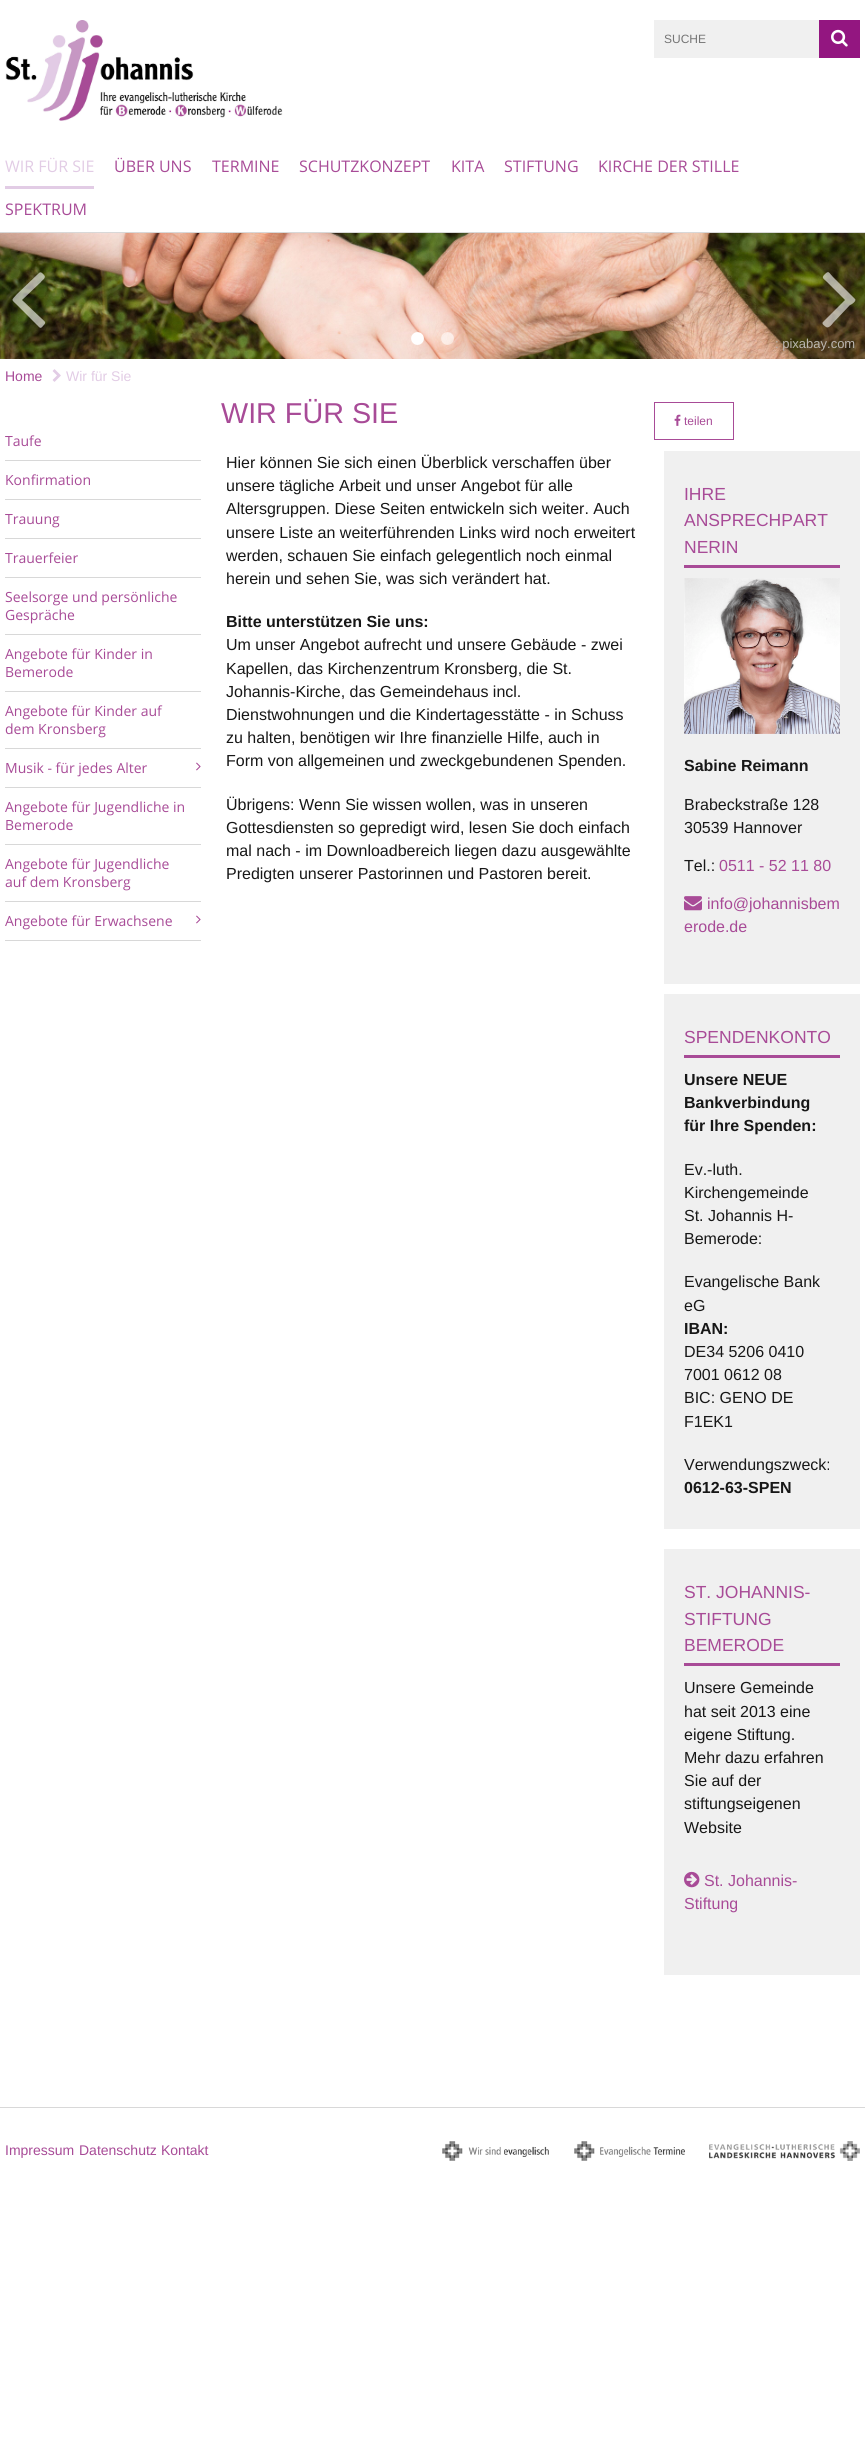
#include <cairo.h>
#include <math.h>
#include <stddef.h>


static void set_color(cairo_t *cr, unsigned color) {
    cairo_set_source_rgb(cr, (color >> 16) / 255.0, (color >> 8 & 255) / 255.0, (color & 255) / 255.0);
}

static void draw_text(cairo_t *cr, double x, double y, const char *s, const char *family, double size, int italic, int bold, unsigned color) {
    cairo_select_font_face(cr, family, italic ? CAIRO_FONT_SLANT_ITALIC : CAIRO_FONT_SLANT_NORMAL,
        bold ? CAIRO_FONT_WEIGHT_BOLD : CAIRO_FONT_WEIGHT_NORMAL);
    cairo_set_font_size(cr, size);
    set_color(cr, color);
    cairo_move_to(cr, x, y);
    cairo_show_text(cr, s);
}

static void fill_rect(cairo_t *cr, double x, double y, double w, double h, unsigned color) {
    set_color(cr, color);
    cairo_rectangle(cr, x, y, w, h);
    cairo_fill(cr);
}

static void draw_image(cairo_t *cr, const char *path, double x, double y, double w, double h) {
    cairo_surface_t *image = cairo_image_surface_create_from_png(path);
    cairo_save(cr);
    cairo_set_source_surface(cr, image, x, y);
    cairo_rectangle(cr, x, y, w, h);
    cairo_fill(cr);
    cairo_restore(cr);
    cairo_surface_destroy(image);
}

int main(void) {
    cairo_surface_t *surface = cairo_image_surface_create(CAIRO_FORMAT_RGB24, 865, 2437);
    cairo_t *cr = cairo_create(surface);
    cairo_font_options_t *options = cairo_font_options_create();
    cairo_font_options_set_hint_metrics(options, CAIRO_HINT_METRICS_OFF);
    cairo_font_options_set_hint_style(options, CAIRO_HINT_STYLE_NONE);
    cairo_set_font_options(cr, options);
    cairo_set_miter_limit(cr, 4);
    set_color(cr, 0xFFFFFF);
    cairo_paint(cr);
    fill_rect(cr, 0, 232, 865, 1, 0xD8D8D8);
    draw_image(cr, "assets/img1.png", 5, 20, 278, 101);
    fill_rect(cr, 654, 20, 165, 38, 0xF0F0F0);
    draw_text(cr, 664, 43, "SUCHE", "Liberation Sans", 12, 0, 0, 0x757575);
    fill_rect(cr, 819, 20, 41, 38, 0x931680);
    draw_image(cr, "assets/img2.png", 831, 29, 17, 18);
    fill_rect(cr, 5, 186, 89, 3, 0xE2CCE5);
    draw_text(cr, 5, 172, "WIR FÜR SIE", "Open Sans", 16, 0, 0, 0xE2CCE5);
    draw_text(cr, 114, 172, "ÜBER UNS", "Open Sans", 16, 0, 0, 0xA84B97);
    draw_text(cr, 212, 172, "TERMINE", "Open Sans", 16, 0, 0, 0xA84B97);
    draw_text(cr, 299, 172, "SCHUTZKONZEPT", "Open Sans", 16, 0, 0, 0xA84B97);
    draw_text(cr, 451, 172, "KITA", "Open Sans", 16, 0, 0, 0xA84B97);
    draw_text(cr, 504, 172, "STIFTUNG", "Open Sans", 16, 0, 0, 0xA84B97);
    draw_text(cr, 598, 172, "KIRCHE DER STILLE", "Open Sans", 16, 0, 0, 0xA84B97);
    draw_text(cr, 5, 215, "SPEKTRUM", "Open Sans", 16, 0, 0, 0xA84B97);
    draw_image(cr, "assets/img5.png", 0, 233, 865, 126);
    cairo_set_source_rgba(cr, 1, 1, 1, 0.6);
    cairo_new_path(cr);
    cairo_move_to(cr, 44, 275);
    cairo_curve_to(cr, 47, 278, 41, 281, 41, 282);
    cairo_line_to(cr, 22, 300);
    cairo_line_to(cr, 41, 318);
    cairo_curve_to(cr, 45, 322, 47, 322, 43, 326);
    cairo_curve_to(cr, 42, 327, 41, 329, 39, 327);
    cairo_line_to(cr, 17, 305);
    cairo_curve_to(cr, 11, 299, 11, 301, 17, 294);
    cairo_line_to(cr, 39, 273);
    cairo_curve_to(cr, 41, 271, 43, 274, 44, 275);
    cairo_close_path(cr);
    cairo_fill(cr);
    cairo_new_path(cr);
    cairo_move_to(cr, 855, 299);
    cairo_curve_to(cr, 857, 301, 851, 305, 850, 305);
    cairo_line_to(cr, 833, 323);
    cairo_curve_to(cr, 833, 323, 829, 329, 826, 327);
    cairo_curve_to(cr, 825, 326, 821, 324, 823, 322);
    cairo_line_to(cr, 845, 300);
    cairo_line_to(cr, 827, 282);
    cairo_curve_to(cr, 823, 278, 821, 278, 825, 274);
    cairo_curve_to(cr, 829, 270, 829, 273, 833, 277);
    cairo_close_path(cr);
    cairo_fill(cr);
    draw_image(cr, "assets/img3.png", 411, 332, 13, 13);
    draw_image(cr, "assets/img4.png", 441, 332, 13, 13);
    draw_text(cr, 775, 348, ": pixabay.com", "Liberation Sans", 13, 0, 0, 0xBAB5AF);
    draw_text(cr, 5, 381, "Home", "Liberation Sans", 14, 0, 0, 0xA84B97);
    draw_image(cr, "assets/img6.png", 52, 369, 9, 13);
    draw_text(cr, 66, 381, "Wir für Sie", "Liberation Sans", 14, 0, 0, 0xE2CCE5);
    fill_rect(cr, 5, 460, 196, 1, 0xD8D8D8);
    draw_text(cr, 5, 446, "Taufe", "Open Sans", 14, 0, 0, 0xA84B97);
    fill_rect(cr, 5, 499, 196, 1, 0xD8D8D8);
    draw_text(cr, 5, 485, "Konfirmation", "Open Sans", 14, 0, 0, 0xA84B97);
    fill_rect(cr, 5, 538, 196, 1, 0xD8D8D8);
    draw_text(cr, 5, 524, "Trauung", "Open Sans", 14, 0, 0, 0xA84B97);
    fill_rect(cr, 5, 577, 196, 1, 0xD8D8D8);
    draw_text(cr, 5, 563, "Trauerfeier", "Open Sans", 14, 0, 0, 0xA84B97);
    fill_rect(cr, 5, 634, 196, 1, 0xD8D8D8);
    draw_text(cr, 5, 602, "Seelsorge und persönliche", "Open Sans", 14, 0, 0, 0xA84B97);
    draw_text(cr, 5, 620, "Gespräche", "Open Sans", 14, 0, 0, 0xA84B97);
    fill_rect(cr, 5, 691, 196, 1, 0xD8D8D8);
    draw_text(cr, 5, 659, "Angebote für Kinder in", "Open Sans", 14, 0, 0, 0xA84B97);
    draw_text(cr, 5, 677, "Bemerode", "Open Sans", 14, 0, 0, 0xA84B97);
    fill_rect(cr, 5, 748, 196, 1, 0xD8D8D8);
    draw_text(cr, 5, 716, "Angebote für Kinder auf", "Open Sans", 14, 0, 0, 0xA84B97);
    draw_text(cr, 5, 734, "dem Kronsberg", "Open Sans", 14, 0, 0, 0xA84B97);
    fill_rect(cr, 5, 787, 196, 1, 0xD8D8D8);
    draw_text(cr, 5, 773, "Musik - für jedes Alter", "Open Sans", 14, 0, 0, 0xA84B97);
    draw_image(cr, "assets/img7.png", 196, 762, 5, 9);
    fill_rect(cr, 5, 844, 196, 1, 0xD8D8D8);
    draw_text(cr, 5, 812, "Angebote für Jugendliche in", "Open Sans", 14, 0, 0, 0xA84B97);
    draw_text(cr, 5, 830, "Bemerode", "Open Sans", 14, 0, 0, 0xA84B97);
    fill_rect(cr, 5, 901, 196, 1, 0xD8D8D8);
    draw_text(cr, 5, 869, "Angebote für Jugendliche", "Open Sans", 14, 0, 0, 0xA84B97);
    draw_text(cr, 5, 887, "auf dem Kronsberg", "Open Sans", 14, 0, 0, 0xA84B97);
    fill_rect(cr, 5, 940, 196, 1, 0xD8D8D8);
    draw_text(cr, 5, 926, "Angebote für Erwachsene", "Open Sans", 14, 0, 0, 0xA84B97);
    draw_image(cr, "assets/img7.png", 196, 915, 5, 9);
    draw_text(cr, 221, 423, "WIR FÜR SIE", "Liberation Sans", 28.75, 0, 0, 0xA84B97);
    cairo_rectangle(cr, 654.5, 402.5, 79, 37);
    cairo_set_line_width(cr, 1);
    cairo_stroke(cr);
    draw_image(cr, "assets/img8.png", 674, 414, 7, 12);
    draw_text(cr, 684, 425, "teilen", "Liberation Sans", 12, 0, 0, 0xA84B97);
    draw_text(cr, 226, 468, "Hier können Sie sich einen Überblick verschaffen über", "Liberation Sans", 16, 0, 0, 0x171717);
    draw_text(cr, 226, 491, "unsere tägliche Arbeit und unser Angebot für alle", "Liberation Sans", 16, 0, 0, 0x171717);
    draw_text(cr, 226, 514, "Altersgruppen. Diese Seiten entwickeln sich weiter. Auch", "Liberation Sans", 16, 0, 0, 0x171717);
    draw_text(cr, 226, 538, "unsere Liste an weiterführenden Links wird noch erweitert", "Liberation Sans", 16, 0, 0, 0x171717);
    draw_text(cr, 226, 561, "werden, schauen Sie einfach gelegentlich noch einmal", "Liberation Sans", 16, 0, 0, 0x171717);
    draw_text(cr, 226, 584, "herein und sehen Sie, was sich verändert hat.", "Liberation Sans", 16, 0, 0, 0x171717);
    draw_text(cr, 226, 627, "Bitte unterstützen Sie uns:", "Liberation Sans", 16, 0, 1, 0x171717);
    draw_text(cr, 226, 650, "Um unser Angebot aufrecht und unsere Gebäude - zwei", "Liberation Sans", 16, 0, 0, 0x171717);
    draw_text(cr, 226, 674, "Kapellen, das Kirchenzentrum Kronsberg, die St.", "Liberation Sans", 16, 0, 0, 0x171717);
    draw_text(cr, 226, 697, "Johannis-Kirche, das Gemeindehaus incl.", "Liberation Sans", 16, 0, 0, 0x171717);
    draw_text(cr, 226, 720, "Dienstwohnungen und die Kindertagesstätte - in Schuss", "Liberation Sans", 16, 0, 0, 0x171717);
    draw_text(cr, 226, 743, "zu halten, benötigen wir Ihre finanzielle Hilfe, auch in", "Liberation Sans", 16, 0, 0, 0x171717);
    draw_text(cr, 226, 766, "Form von allgemeinen und zweckgebundenen Spenden.", "Liberation Sans", 16, 0, 0, 0x171717);
    draw_text(cr, 226, 810, "Übrigens: Wenn Sie wissen wollen, was in unseren", "Liberation Sans", 16, 0, 0, 0x171717);
    draw_text(cr, 226, 833, "Gottesdiensten so gepredigt wird, lesen Sie doch einfach", "Liberation Sans", 16, 0, 0, 0x171717);
    draw_text(cr, 226, 856, "mal nach - im Downloadbereich liegen dazu ausgewählte", "Liberation Sans", 16, 0, 0, 0x171717);
    draw_text(cr, 226, 879, "Predigten unserer Pastorinnen und Pastoren bereit.", "Liberation Sans", 16, 0, 0, 0x171717);
    fill_rect(cr, 664, 451, 196, 533, 0xF0F0F0);
    fill_rect(cr, 684, 565, 156, 3, 0xA84B97);
    draw_text(cr, 684, 500, "IHRE", "Liberation Sans", 17.5, 0, 0, 0xA84B97);
    draw_text(cr, 684, 526, "ANSPRECHPART", "Liberation Sans", 17.5, 0, 0, 0xA84B97);
    draw_text(cr, 684, 553, "NERIN", "Liberation Sans", 17.5, 0, 0, 0xA84B97);
    draw_image(cr, "assets/img9.png", 684, 578, 156, 156);
    draw_text(cr, 684, 771, "Sabine Reimann", "Liberation Sans", 16, 0, 1, 0x171717);
    draw_text(cr, 684, 810, "Brabeckstraße 128", "Liberation Sans", 16, 0, 0, 0x171717);
    draw_text(cr, 684, 833, "30539 Hannover", "Liberation Sans", 16, 0, 0, 0x171717);
    draw_text(cr, 684, 871, "Tel.:", "Liberation Sans", 16, 0, 0, 0x171717);
    draw_text(cr, 719, 871, "0511 - 52 11 80", "Liberation Sans", 16, 0, 0, 0xA84B97);
    draw_image(cr, "assets/img10.png", 684, 896, 18, 15);
    draw_text(cr, 707, 909, "info@johannisbem", "Liberation Sans", 16, 0, 0, 0xA84B97);
    draw_text(cr, 684, 932, "erode.de", "Liberation Sans", 16, 0, 0, 0xA84B97);
    fill_rect(cr, 664, 994, 196, 535, 0xF0F0F0);
    fill_rect(cr, 684, 1055, 156, 3, 0xA84B97);
    draw_text(cr, 684, 1043, "SPENDENKONTO", "Liberation Sans", 17.5, 0, 0, 0xA84B97);
    draw_text(cr, 684, 1085, "Unsere NEUE", "Liberation Sans", 16, 0, 1, 0x171717);
    draw_text(cr, 684, 1108, "Bankverbindung", "Liberation Sans", 16, 0, 1, 0x171717);
    draw_text(cr, 684, 1131, "für Ihre Spenden:", "Liberation Sans", 16, 0, 1, 0x171717);
    draw_text(cr, 684, 1175, "Ev.-luth.", "Liberation Sans", 16, 0, 0, 0x171717);
    draw_text(cr, 684, 1198, "Kirchengemeinde", "Liberation Sans", 16, 0, 0, 0x171717);
    draw_text(cr, 684, 1221, "St. Johannis H-", "Liberation Sans", 16, 0, 0, 0x171717);
    draw_text(cr, 684, 1244, "Bemerode:", "Liberation Sans", 16, 0, 0, 0x171717);
    draw_text(cr, 684, 1287, "Evangelische Bank", "Liberation Sans", 16, 0, 0, 0x171717);
    draw_text(cr, 684, 1311, "eG", "Liberation Sans", 16, 0, 0, 0x171717);
    draw_text(cr, 684, 1334, "IBAN:", "Liberation Sans", 16, 0, 1, 0x171717);
    draw_text(cr, 684, 1357, "DE34 5206 0410", "Liberation Sans", 16, 0, 0, 0x171717);
    draw_text(cr, 684, 1380, "7001 0612 08", "Liberation Sans", 16, 0, 0, 0x171717);
    draw_text(cr, 684, 1403, "BIC: GENO DE", "Liberation Sans", 16, 0, 0, 0x171717);
    draw_text(cr, 684, 1427, "F1EK1", "Liberation Sans", 16, 0, 0, 0x171717);
    draw_text(cr, 684, 1470, "Verwendungszweck:", "Liberation Sans", 16, 0, 0, 0x171717);
    draw_text(cr, 684, 1493, "0612-63-SPEN", "Liberation Sans", 16, 0, 1, 0x171717);
    fill_rect(cr, 664, 1549, 196, 426, 0xF0F0F0);
    fill_rect(cr, 684, 1663, 156, 3, 0xA84B97);
    draw_text(cr, 684, 1598, "ST. JOHANNIS-", "Liberation Sans", 17.5, 0, 0, 0xA84B97);
    draw_text(cr, 684, 1625, "STIFTUNG", "Liberation Sans", 17.5, 0, 0, 0xA84B97);
    draw_text(cr, 684, 1651, "BEMERODE", "Liberation Sans", 17.5, 0, 0, 0xA84B97);
    draw_text(cr, 684, 1693, "Unsere Gemeinde", "Liberation Sans", 16, 0, 0, 0x171717);
    draw_text(cr, 684, 1717, "hat seit 2013 eine", "Liberation Sans", 16, 0, 0, 0x171717);
    draw_text(cr, 684, 1740, "eigene Stiftung.", "Liberation Sans", 16, 0, 0, 0x171717);
    draw_text(cr, 684, 1763, "Mehr dazu erfahren", "Liberation Sans", 16, 0, 0, 0x171717);
    draw_text(cr, 684, 1786, "Sie auf der", "Liberation Sans", 16, 0, 0, 0x171717);
    draw_text(cr, 684, 1809, "stiftungseigenen", "Liberation Sans", 16, 0, 0, 0x171717);
    draw_text(cr, 684, 1833, "Website", "Liberation Sans", 16, 0, 0, 0x171717);
    draw_image(cr, "assets/img11.png", 684, 1871, 16, 17);
    draw_text(cr, 704, 1886, "St. Johannis-", "Liberation Sans", 16, 0, 0, 0xA84B97);
    draw_text(cr, 684, 1909, "Stiftung", "Liberation Sans", 16, 0, 0, 0xA84B97);
    fill_rect(cr, 0, 2107, 865, 1, 0xD8D8D8);
    draw_text(cr, 5, 2155, "Impressum", "Liberation Sans", 14, 0, 0, 0xA84B97);
    draw_text(cr, 79, 2155, "Datenschutz", "Liberation Sans", 14, 0, 0, 0xA84B97);
    draw_text(cr, 161, 2155, "Kontakt", "Liberation Sans", 14, 0, 0, 0xA84B97);
    draw_image(cr, "assets/img12.png", 442, 2141, 107, 20);
    draw_image(cr, "assets/img13.png", 574, 2141, 111, 20);
    draw_image(cr, "assets/img14.png", 709, 2141, 151, 20);
    cairo_surface_write_to_png(surface, "output.png");
    cairo_font_options_destroy(options);
    cairo_destroy(cr);
    cairo_surface_destroy(surface);
    return 0;
}
